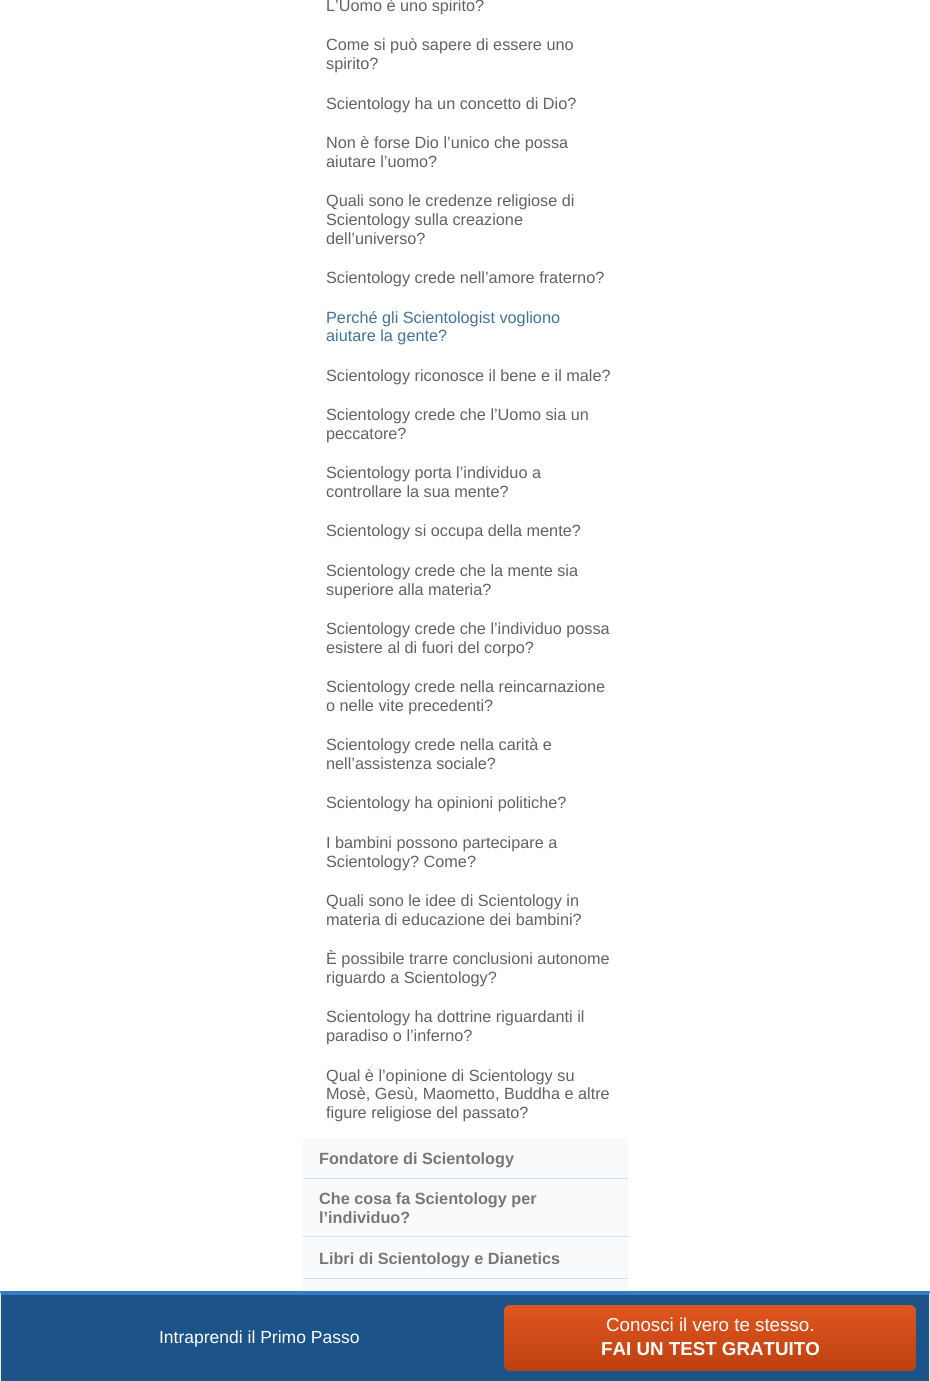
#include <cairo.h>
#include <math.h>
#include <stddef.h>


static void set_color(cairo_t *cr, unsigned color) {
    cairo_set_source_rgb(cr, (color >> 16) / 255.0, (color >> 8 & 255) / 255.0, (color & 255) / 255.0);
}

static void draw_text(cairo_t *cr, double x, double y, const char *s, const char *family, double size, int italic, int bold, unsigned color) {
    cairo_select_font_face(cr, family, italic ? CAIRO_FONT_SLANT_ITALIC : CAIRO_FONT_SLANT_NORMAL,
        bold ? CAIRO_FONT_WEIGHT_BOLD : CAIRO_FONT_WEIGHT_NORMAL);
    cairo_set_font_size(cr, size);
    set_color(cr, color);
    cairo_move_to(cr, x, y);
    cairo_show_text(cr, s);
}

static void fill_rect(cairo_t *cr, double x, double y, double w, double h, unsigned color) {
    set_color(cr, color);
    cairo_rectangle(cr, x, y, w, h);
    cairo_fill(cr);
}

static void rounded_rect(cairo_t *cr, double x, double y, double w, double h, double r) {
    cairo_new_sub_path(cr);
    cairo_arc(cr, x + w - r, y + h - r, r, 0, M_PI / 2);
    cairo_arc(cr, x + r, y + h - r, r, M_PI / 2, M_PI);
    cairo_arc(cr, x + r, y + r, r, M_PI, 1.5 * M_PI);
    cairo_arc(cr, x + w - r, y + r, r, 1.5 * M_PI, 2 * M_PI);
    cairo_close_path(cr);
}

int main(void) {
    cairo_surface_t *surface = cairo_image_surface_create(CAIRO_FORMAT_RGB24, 930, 1381);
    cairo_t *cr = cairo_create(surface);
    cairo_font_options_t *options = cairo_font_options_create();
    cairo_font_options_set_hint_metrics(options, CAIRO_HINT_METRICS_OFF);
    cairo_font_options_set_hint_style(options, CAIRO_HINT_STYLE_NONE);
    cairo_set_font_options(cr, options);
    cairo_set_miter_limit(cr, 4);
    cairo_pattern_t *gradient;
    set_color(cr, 0xFFFFFF);
    cairo_paint(cr);
    fill_rect(cr, 303, 1138, 325, 153, 0xF9FAFC);
    draw_text(cr, 326, 11, "L’Uomo è uno spirito?", "Liberation Sans", 16.25, 0, 0, 0x626262);
    draw_text(cr, 326, 50, "Come si può sapere di essere uno", "Liberation Sans", 16.25, 0, 0, 0x626262);
    draw_text(cr, 326, 69, "spirito?", "Liberation Sans", 16.25, 0, 0, 0x626262);
    draw_text(cr, 326, 109, "Scientology ha un concetto di Dio?", "Liberation Sans", 16.25, 0, 0, 0x626262);
    draw_text(cr, 326, 148, "Non è forse Dio l’unico che possa", "Liberation Sans", 16.25, 0, 0, 0x626262);
    draw_text(cr, 326, 167, "aiutare l’uomo?", "Liberation Sans", 16.25, 0, 0, 0x626262);
    draw_text(cr, 326, 206, "Quali sono le credenze religiose di", "Liberation Sans", 16.25, 0, 0, 0x626262);
    draw_text(cr, 326, 225, "Scientology sulla creazione", "Liberation Sans", 16.25, 0, 0, 0x626262);
    draw_text(cr, 326, 244, "dell’universo?", "Liberation Sans", 16.25, 0, 0, 0x626262);
    draw_text(cr, 326, 283, "Scientology crede nell’amore fraterno?", "Liberation Sans", 16.25, 0, 0, 0x626262);
    draw_text(cr, 326, 323, "Perché gli Scientologist vogliono", "Liberation Sans", 16.25, 0, 0, 0x42739C);
    draw_text(cr, 326, 341, "aiutare la gente?", "Liberation Sans", 16.25, 0, 0, 0x42739C);
    draw_text(cr, 326, 381, "Scientology riconosce il bene e il male?", "Liberation Sans", 16.25, 0, 0, 0x626262);
    draw_text(cr, 326, 420, "Scientology crede che l’Uomo sia un", "Liberation Sans", 16.25, 0, 0, 0x626262);
    draw_text(cr, 326, 439, "peccatore?", "Liberation Sans", 16.25, 0, 0, 0x626262);
    draw_text(cr, 326, 478, "Scientology porta l’individuo a", "Liberation Sans", 16.25, 0, 0, 0x626262);
    draw_text(cr, 326, 497, "controllare la sua mente?", "Liberation Sans", 16.25, 0, 0, 0x626262);
    draw_text(cr, 326, 536, "Scientology si occupa della mente?", "Liberation Sans", 16.25, 0, 0, 0x626262);
    draw_text(cr, 326, 576, "Scientology crede che la mente sia", "Liberation Sans", 16.25, 0, 0, 0x626262);
    draw_text(cr, 326, 595, "superiore alla materia?", "Liberation Sans", 16.25, 0, 0, 0x626262);
    draw_text(cr, 326, 634, "Scientology crede che l’individuo possa", "Liberation Sans", 16.25, 0, 0, 0x626262);
    draw_text(cr, 326, 653, "esistere al di fuori del corpo?", "Liberation Sans", 16.25, 0, 0, 0x626262);
    draw_text(cr, 326, 692, "Scientology crede nella reincarnazione", "Liberation Sans", 16.25, 0, 0, 0x626262);
    draw_text(cr, 326, 711, "o nelle vite precedenti?", "Liberation Sans", 16.25, 0, 0, 0x626262);
    draw_text(cr, 326, 750, "Scientology crede nella carità e", "Liberation Sans", 16.25, 0, 0, 0x626262);
    draw_text(cr, 326, 769, "nell’assistenza sociale?", "Liberation Sans", 16.25, 0, 0, 0x626262);
    draw_text(cr, 326, 808, "Scientology ha opinioni politiche?", "Liberation Sans", 16.25, 0, 0, 0x626262);
    draw_text(cr, 326, 848, "I bambini possono partecipare a", "Liberation Sans", 16.25, 0, 0, 0x626262);
    draw_text(cr, 326, 867, "Scientology? Come?", "Liberation Sans", 16.25, 0, 0, 0x626262);
    draw_text(cr, 326, 906, "Quali sono le idee di Scientology in", "Liberation Sans", 16.25, 0, 0, 0x626262);
    draw_text(cr, 326, 925, "materia di educazione dei bambini?", "Liberation Sans", 16.25, 0, 0, 0x626262);
    draw_text(cr, 326, 964, "È possibile trarre conclusioni autonome", "Liberation Sans", 16.25, 0, 0, 0x626262);
    draw_text(cr, 326, 983, "riguardo a Scientology?", "Liberation Sans", 16.25, 0, 0, 0x626262);
    draw_text(cr, 326, 1022, "Scientology ha dottrine riguardanti il", "Liberation Sans", 16.25, 0, 0, 0x626262);
    draw_text(cr, 326, 1041, "paradiso o l’inferno?", "Liberation Sans", 16.25, 0, 0, 0x626262);
    draw_text(cr, 326, 1081, "Qual è l’opinione di Scientology su", "Liberation Sans", 16.25, 0, 0, 0x626262);
    draw_text(cr, 326, 1099, "Mosè, Gesù, Maometto, Buddha e altre", "Liberation Sans", 16.25, 0, 0, 0x626262);
    draw_text(cr, 326, 1118, "figure religiose del passato?", "Liberation Sans", 16.25, 0, 0, 0x626262);
    fill_rect(cr, 303, 1178, 325, 1, 0xD6DFE7);
    draw_text(cr, 319, 1164, "Fondatore di Scientology", "Liberation Sans", 16.25, 0, 1, 0x777777);
    fill_rect(cr, 303, 1236, 325, 1, 0xD6DFE7);
    draw_text(cr, 319, 1204, "Che cosa fa Scientology per", "Liberation Sans", 16.25, 0, 1, 0x777777);
    draw_text(cr, 319, 1223, "l’individuo?", "Liberation Sans", 16.25, 0, 1, 0x777777);
    fill_rect(cr, 303, 1278, 325, 1, 0xD6DFE7);
    draw_text(cr, 319, 1264, "Libri di Scientology e Dianetics", "Liberation Sans", 16.25, 0, 1, 0x777777);
    fill_rect(cr, 0, 1291, 930, 90, 0x1C548A);
    set_color(cr, 0x357CC4);
    cairo_new_path(cr);
    cairo_move_to(cr, 0, 1291);
    cairo_line_to(cr, 930, 1291);
    cairo_line_to(cr, 929, 1295);
    cairo_line_to(cr, 1, 1295);
    cairo_close_path(cr);
    cairo_fill(cr);
    set_color(cr, 0xEFEFEF);
    cairo_new_path(cr);
    cairo_move_to(cr, 930, 1291);
    cairo_line_to(cr, 930, 1381);
    cairo_line_to(cr, 929, 1381);
    cairo_line_to(cr, 929, 1295);
    cairo_close_path(cr);
    cairo_fill(cr);
    cairo_new_path(cr);
    cairo_move_to(cr, 0, 1381);
    cairo_line_to(cr, 0, 1291);
    cairo_line_to(cr, 1, 1295);
    cairo_line_to(cr, 1, 1381);
    cairo_close_path(cr);
    cairo_fill(cr);
    draw_text(cr, 159, 1343, "Intraprendi il Primo Passo", "Liberation Sans", 17.5, 0, 0, 0xFFFFFF);
    gradient = cairo_pattern_create_linear(710, 1305, 710, 1371);
    cairo_pattern_add_color_stop_rgba(gradient, 0, 0.878, 0.337, 0.122, 1);
    cairo_pattern_add_color_stop_rgba(gradient, 1, 0.741, 0.255, 0.063, 1);
    cairo_set_source(cr, gradient);
    cairo_pattern_destroy(gradient);
    rounded_rect(cr, 504, 1305, 412, 66, 6);
    cairo_fill(cr);
    draw_text(cr, 606, 1331, "Conosci il vero te stesso.", "Liberation Sans", 18.75, 0, 0, 0xFFFFFF);
    draw_text(cr, 601, 1355, "FAI UN TEST GRATUITO", "Liberation Sans", 18.75, 0, 1, 0xFFFFFF);
    cairo_surface_write_to_png(surface, "output.png");
    cairo_font_options_destroy(options);
    cairo_destroy(cr);
    cairo_surface_destroy(surface);
    return 0;
}
